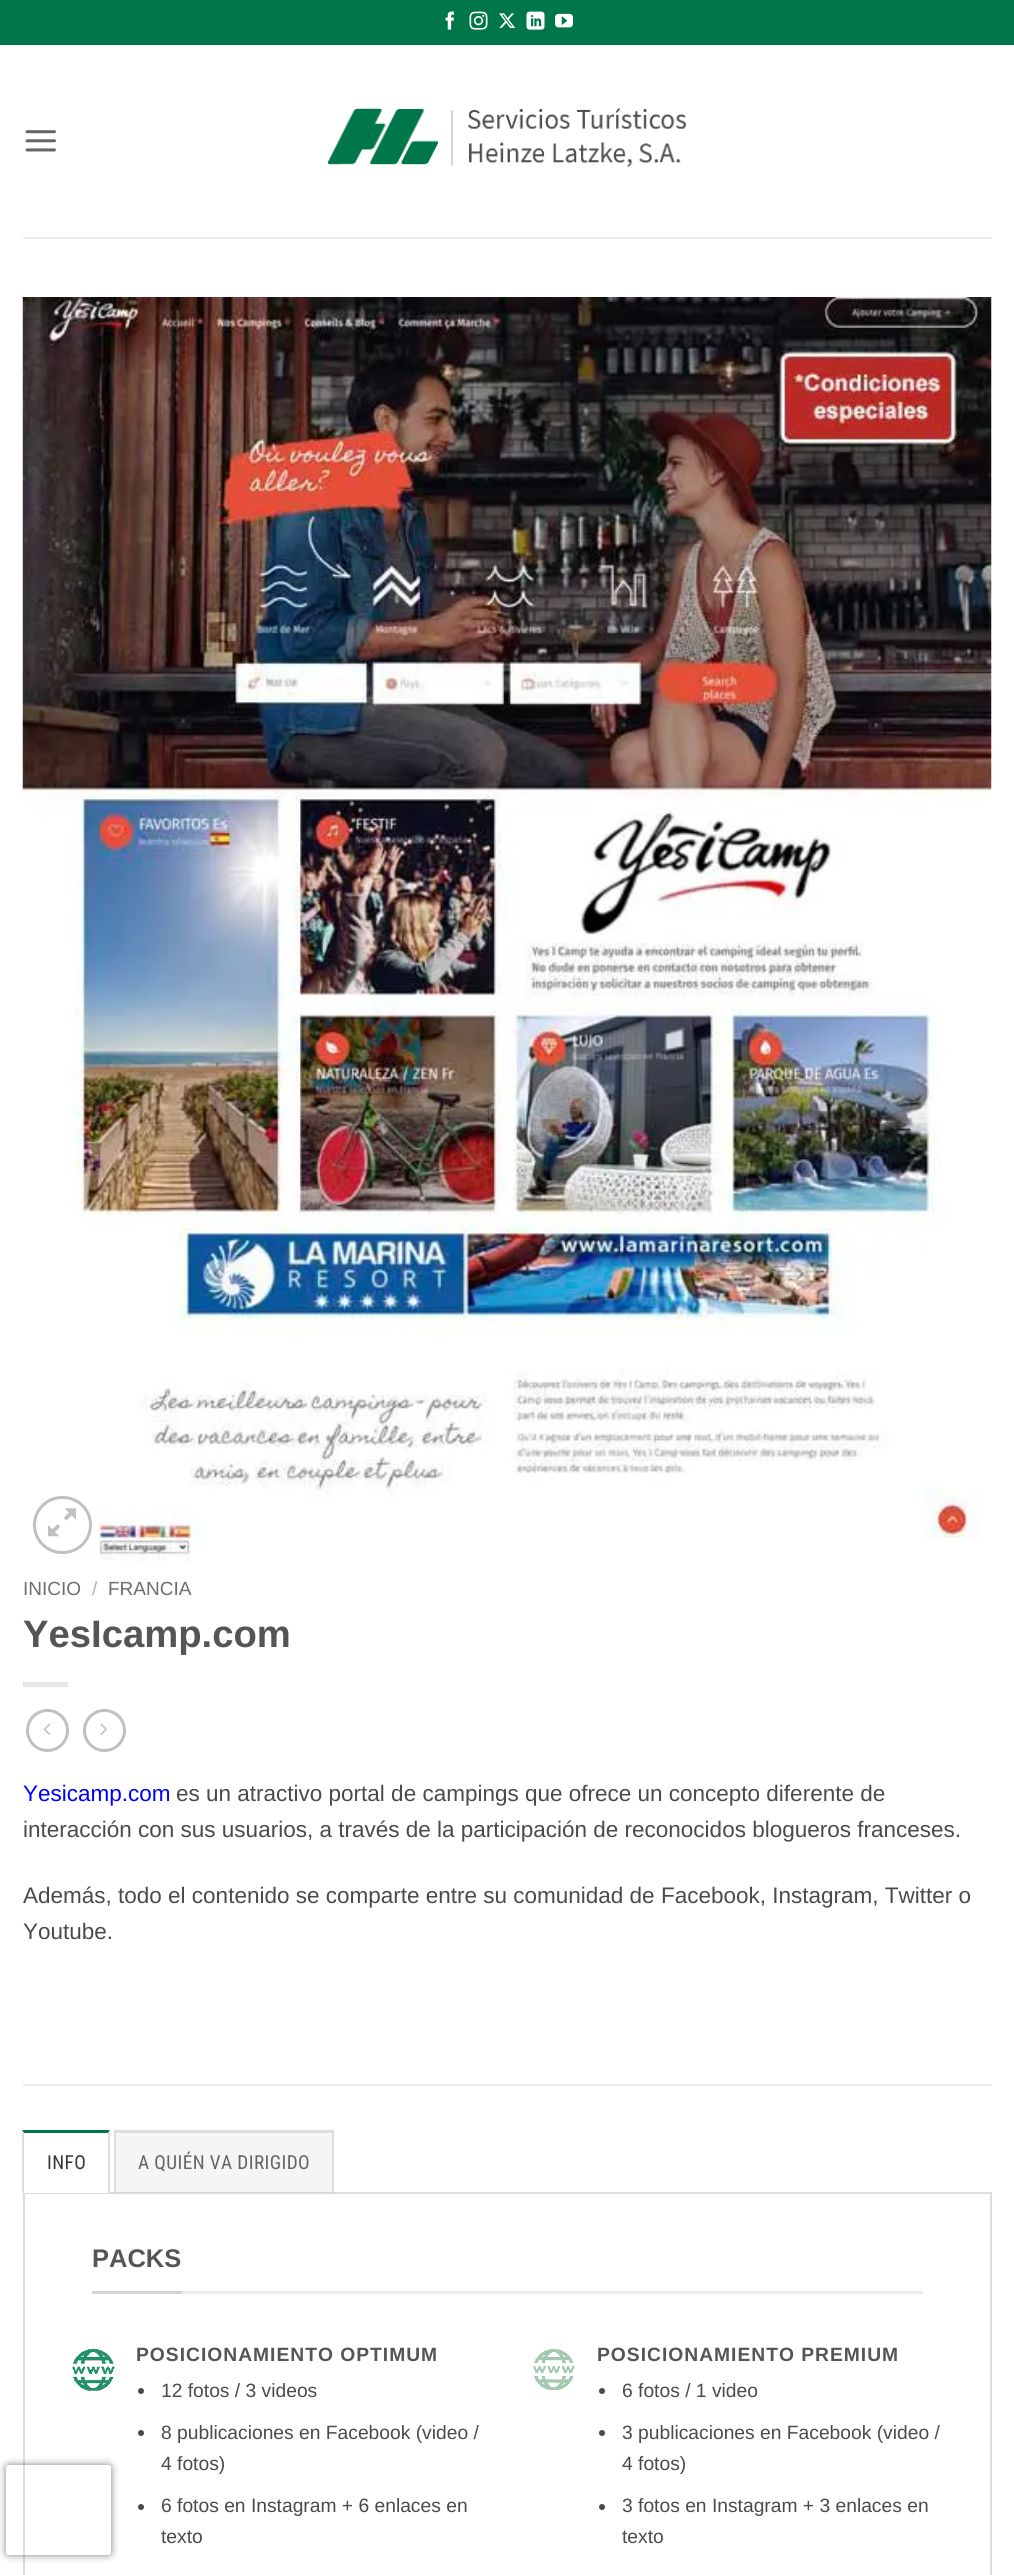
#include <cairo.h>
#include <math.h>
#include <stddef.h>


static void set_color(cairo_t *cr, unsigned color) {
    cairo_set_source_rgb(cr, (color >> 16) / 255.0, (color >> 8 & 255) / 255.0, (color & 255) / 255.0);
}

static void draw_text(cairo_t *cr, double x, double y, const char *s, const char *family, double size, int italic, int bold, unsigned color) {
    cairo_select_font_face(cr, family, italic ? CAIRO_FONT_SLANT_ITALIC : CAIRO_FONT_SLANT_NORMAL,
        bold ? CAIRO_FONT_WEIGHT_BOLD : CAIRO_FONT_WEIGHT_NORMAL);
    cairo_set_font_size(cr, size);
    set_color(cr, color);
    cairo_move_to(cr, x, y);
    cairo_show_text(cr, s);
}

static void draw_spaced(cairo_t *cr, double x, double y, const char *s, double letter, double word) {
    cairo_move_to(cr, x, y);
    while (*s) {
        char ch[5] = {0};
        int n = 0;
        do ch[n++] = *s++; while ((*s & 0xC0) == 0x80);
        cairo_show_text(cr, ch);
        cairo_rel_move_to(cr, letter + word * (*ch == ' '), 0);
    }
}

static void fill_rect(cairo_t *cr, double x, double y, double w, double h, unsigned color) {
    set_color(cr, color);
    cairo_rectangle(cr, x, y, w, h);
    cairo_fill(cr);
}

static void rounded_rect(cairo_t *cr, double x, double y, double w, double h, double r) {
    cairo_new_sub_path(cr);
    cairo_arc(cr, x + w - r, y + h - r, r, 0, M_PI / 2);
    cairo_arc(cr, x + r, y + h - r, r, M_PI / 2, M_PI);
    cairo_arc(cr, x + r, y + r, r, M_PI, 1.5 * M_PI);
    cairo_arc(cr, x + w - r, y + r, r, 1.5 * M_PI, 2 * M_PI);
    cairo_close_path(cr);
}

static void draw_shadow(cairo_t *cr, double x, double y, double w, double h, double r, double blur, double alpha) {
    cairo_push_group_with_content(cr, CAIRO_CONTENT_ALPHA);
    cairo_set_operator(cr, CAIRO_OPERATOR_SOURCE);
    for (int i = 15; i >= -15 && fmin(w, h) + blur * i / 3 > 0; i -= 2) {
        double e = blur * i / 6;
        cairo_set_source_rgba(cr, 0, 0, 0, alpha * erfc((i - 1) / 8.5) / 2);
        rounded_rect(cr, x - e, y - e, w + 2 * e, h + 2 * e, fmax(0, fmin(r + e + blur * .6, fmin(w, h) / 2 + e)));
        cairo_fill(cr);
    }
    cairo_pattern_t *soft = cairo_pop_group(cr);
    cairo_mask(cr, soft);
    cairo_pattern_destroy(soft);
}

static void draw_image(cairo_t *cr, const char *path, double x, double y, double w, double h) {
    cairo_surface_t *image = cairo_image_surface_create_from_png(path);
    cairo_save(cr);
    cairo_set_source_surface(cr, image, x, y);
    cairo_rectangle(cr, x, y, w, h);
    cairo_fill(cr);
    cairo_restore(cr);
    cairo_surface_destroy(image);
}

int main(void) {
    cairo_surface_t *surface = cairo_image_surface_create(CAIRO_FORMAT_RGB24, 1014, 2575);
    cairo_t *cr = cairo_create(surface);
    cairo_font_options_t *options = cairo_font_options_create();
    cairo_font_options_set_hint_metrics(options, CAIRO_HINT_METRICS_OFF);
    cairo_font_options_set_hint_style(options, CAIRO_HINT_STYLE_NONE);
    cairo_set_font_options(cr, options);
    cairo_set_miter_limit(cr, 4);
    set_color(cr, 0xFFFFFF);
    cairo_paint(cr);
    fill_rect(cr, 0, 0, 1014, 45, 0x00774A);
    draw_image(cr, "assets/img1.png", 445, 11, 9, 19);
    draw_image(cr, "assets/img2.png", 469, 11, 19, 19);
    draw_image(cr, "assets/img3.png", 499, 13, 16, 15);
    draw_image(cr, "assets/img4.png", 526, 11, 19, 19);
    draw_image(cr, "assets/img5.png", 555, 13, 18, 15);
    draw_image(cr, "assets/img6.png", 25, 130, 31, 22);
    draw_image(cr, "assets/img7.png", 327, 108, 360, 60);
    fill_rect(cr, 23, 237, 969, 2, 0xEDEDED);
    draw_image(cr, "assets/img8.png", 22, 297, 970, 1265);
    rounded_rect(cr, 34.5, 1497.5, 56, 55, 27.5);
    set_color(cr, 0xC0C0C0);
    cairo_set_line_width(cr, 3);
    cairo_stroke(cr);
    draw_image(cr, "assets/img9.png", 48, 1508, 28, 29);
    draw_text(cr, 23, 1595, "INICIO", "Liberation Sans", 19, 0, 0, 0x6E6E6E);
    draw_text(cr, 92, 1595, "/", "Liberation Sans", 19, 0, 0, 0xB2B2B2);
    draw_text(cr, 108, 1595, "FRANCIA", "Liberation Sans", 19, 0, 0, 0x6E6E6E);
    draw_text(cr, 23, 1647, "YesIcamp.com", "Liberation Sans", 38.25, 0, 1, 0x555555);
    fill_rect(cr, 23, 1682, 45, 5, 0xE6E6E6);
    cairo_new_path(cr);
    cairo_arc(cr, 47.5, 1730.5, 20, 0, 2 * M_PI);
    set_color(cr, 0xC0C0C0);
    cairo_stroke(cr);
    draw_image(cr, "assets/img10.png", 43, 1723, 8, 12);
    cairo_arc(cr, 104.5, 1730.5, 20, 0, 2 * M_PI);
    cairo_stroke(cr);
    draw_image(cr, "assets/img11.png", 100, 1723, 7, 12);
    draw_text(cr, 23, 1801, "Yesicamp.com", "Liberation Sans", 22.5, 0, 0, 0x0000FF);
    draw_text(cr, 176, 1801, "es un atractivo portal de campings que ofrece un concepto diferente de", "Liberation Sans", 22.5, 0, 0, 0x4A4A4A);
    draw_text(cr, 23, 1837, "interacción con sus usuarios, a través de la participación de reconocidos blogueros franceses.", "Liberation Sans", 22.5, 0, 0, 0x4A4A4A);
    draw_text(cr, 23, 1903, "Además, todo el contenido se comparte entre su comunidad de Facebook, Instagram, Twitter o", "Liberation Sans", 22.5, 0, 0, 0x4A4A4A);
    draw_text(cr, 23, 1939, "Youtube.", "Liberation Sans", 22.5, 0, 0, 0x4A4A4A);
    fill_rect(cr, 23, 2084, 969, 2, 0xECECEC);
    cairo_rectangle(cr, 24, 2193, 967, 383);
    set_color(cr, 0xDDDDDD);
    cairo_set_line_width(cr, 2);
    cairo_stroke(cr);
    fill_rect(cr, 23, 2192, 87, 1, 0xFFFFFF);
    set_color(cr, 0x00774A);
    cairo_new_path(cr);
    cairo_move_to(cr, 22, 2130);
    cairo_line_to(cr, 110, 2130);
    cairo_line_to(cr, 108, 2133);
    cairo_line_to(cr, 24, 2133);
    cairo_close_path(cr);
    cairo_fill(cr);
    set_color(cr, 0xDDDDDD);
    cairo_new_path(cr);
    cairo_move_to(cr, 110, 2130);
    cairo_line_to(cr, 110, 2193);
    cairo_line_to(cr, 108, 2193);
    cairo_line_to(cr, 108, 2133);
    cairo_close_path(cr);
    cairo_fill(cr);
    cairo_new_path(cr);
    cairo_move_to(cr, 22, 2193);
    cairo_line_to(cr, 22, 2130);
    cairo_line_to(cr, 24, 2133);
    cairo_line_to(cr, 24, 2193);
    cairo_close_path(cr);
    cairo_fill(cr);
    cairo_select_font_face(cr, "Roboto Condensed", CAIRO_FONT_SLANT_NORMAL, CAIRO_FONT_WEIGHT_NORMAL);
    cairo_set_font_size(cr, 19.25);
    set_color(cr, 0x363636);
    draw_spaced(cr, 47, 2169, "INFO", 0.4, 0);
    cairo_set_source_rgba(cr, 0, 0, 0, 0.04);
    cairo_rectangle(cr, 116, 2133, 216, 60);
    cairo_fill(cr);
    fill_rect(cr, 114, 2130, 219, 3, 0xDDDDDD);
    fill_rect(cr, 332, 2130, 2, 63, 0xDDDDDD);
    fill_rect(cr, 114, 2130, 2, 63, 0xDDDDDD);
    set_color(cr, 0x646464);
    draw_spaced(cr, 138, 2169, "A QUIÉN VA DIRIGIDO", 0.4, 0);
    fill_rect(cr, 182, 2291, 741, 3, 0xECECEC);
    fill_rect(cr, 92, 2291, 90, 3, 0xD4D4D4);
    draw_text(cr, 92, 2267, "PACKS", "Liberation Sans", 25.5, 0, 1, 0x555555);
    draw_image(cr, "assets/img12.png", 72, 2348, 43, 43);
    cairo_set_font_size(cr, 19.25);
    draw_spaced(cr, 136, 2361, "POSICIONAMIENTO OPTIMUM", 1, 0);
    set_color(cr, 0x4A4A4A);
    cairo_new_path(cr);
    cairo_arc(cr, 141, 2391, 3, 0, 2 * M_PI);
    cairo_fill(cr);
    draw_text(cr, 161, 2397, "12 fotos / 3 videos", "Liberation Sans", 19.25, 0, 0, 0x4A4A4A);
    cairo_new_path(cr);
    cairo_arc(cr, 141, 2433, 3, 0, 2 * M_PI);
    cairo_fill(cr);
    draw_text(cr, 161, 2439, "8 publicaciones en Facebook (video /", "Liberation Sans", 19.25, 0, 0, 0x4A4A4A);
    draw_text(cr, 161, 2470, "4 fotos)", "Liberation Sans", 19.25, 0, 0, 0x4A4A4A);
    cairo_new_path(cr);
    cairo_arc(cr, 141, 2507, 3, 0, 2 * M_PI);
    cairo_fill(cr);
    draw_text(cr, 161, 2512, "6 fotos en Instagram + 6 enlaces en", "Liberation Sans", 19.25, 0, 0, 0x4A4A4A);
    draw_text(cr, 161, 2543, "texto", "Liberation Sans", 19.25, 0, 0, 0x4A4A4A);
    draw_image(cr, "assets/img13.png", 533, 2348, 42, 42);
    cairo_select_font_face(cr, "Liberation Sans", CAIRO_FONT_SLANT_NORMAL, CAIRO_FONT_WEIGHT_BOLD);
    set_color(cr, 0x555555);
    draw_spaced(cr, 597, 2361, "POSICIONAMIENTO PREMIUM", 1, 0);
    set_color(cr, 0x4A4A4A);
    cairo_new_path(cr);
    cairo_arc(cr, 602, 2391, 3, 0, 2 * M_PI);
    cairo_fill(cr);
    draw_text(cr, 622, 2397, "6 fotos / 1 video", "Liberation Sans", 19.25, 0, 0, 0x4A4A4A);
    cairo_new_path(cr);
    cairo_arc(cr, 602, 2433, 3, 0, 2 * M_PI);
    cairo_fill(cr);
    draw_text(cr, 622, 2439, "3 publicaciones en Facebook (video /", "Liberation Sans", 19.25, 0, 0, 0x4A4A4A);
    draw_text(cr, 622, 2470, "4 fotos)", "Liberation Sans", 19.25, 0, 0, 0x4A4A4A);
    cairo_new_path(cr);
    cairo_arc(cr, 602, 2507, 3, 0, 2 * M_PI);
    cairo_fill(cr);
    draw_text(cr, 622, 2512, "3 fotos en Instagram + 3 enlaces en", "Liberation Sans", 19.25, 0, 0, 0x4A4A4A);
    draw_text(cr, 622, 2543, "texto", "Liberation Sans", 19.25, 0, 0, 0x4A4A4A);
    cairo_save(cr);
    cairo_set_fill_rule(cr, CAIRO_FILL_RULE_EVEN_ODD);
    cairo_new_path(cr);
    cairo_move_to(cr, 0, 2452);
    cairo_line_to(cr, 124, 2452);
    cairo_line_to(cr, 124, 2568);
    cairo_line_to(cr, 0, 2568);
    cairo_close_path(cr);
    cairo_move_to(cr, 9, 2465);
    cairo_line_to(cr, 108, 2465);
    cairo_curve_to(cr, 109.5, 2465, 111, 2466.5, 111, 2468);
    cairo_line_to(cr, 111, 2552);
    cairo_curve_to(cr, 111, 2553.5, 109.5, 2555, 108, 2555);
    cairo_line_to(cr, 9, 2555);
    cairo_curve_to(cr, 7.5, 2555, 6, 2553.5, 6, 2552);
    cairo_line_to(cr, 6, 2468);
    cairo_curve_to(cr, 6, 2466.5, 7.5, 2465, 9, 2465);
    cairo_close_path(cr);
    cairo_clip(cr);
    set_color(cr, 0x808080);
    draw_shadow(cr, 6, 2465, 105, 90, 3, 4, 1);
    cairo_restore(cr);
    cairo_surface_write_to_png(surface, "output.png");
    cairo_font_options_destroy(options);
    cairo_destroy(cr);
    cairo_surface_destroy(surface);
    return 0;
}
